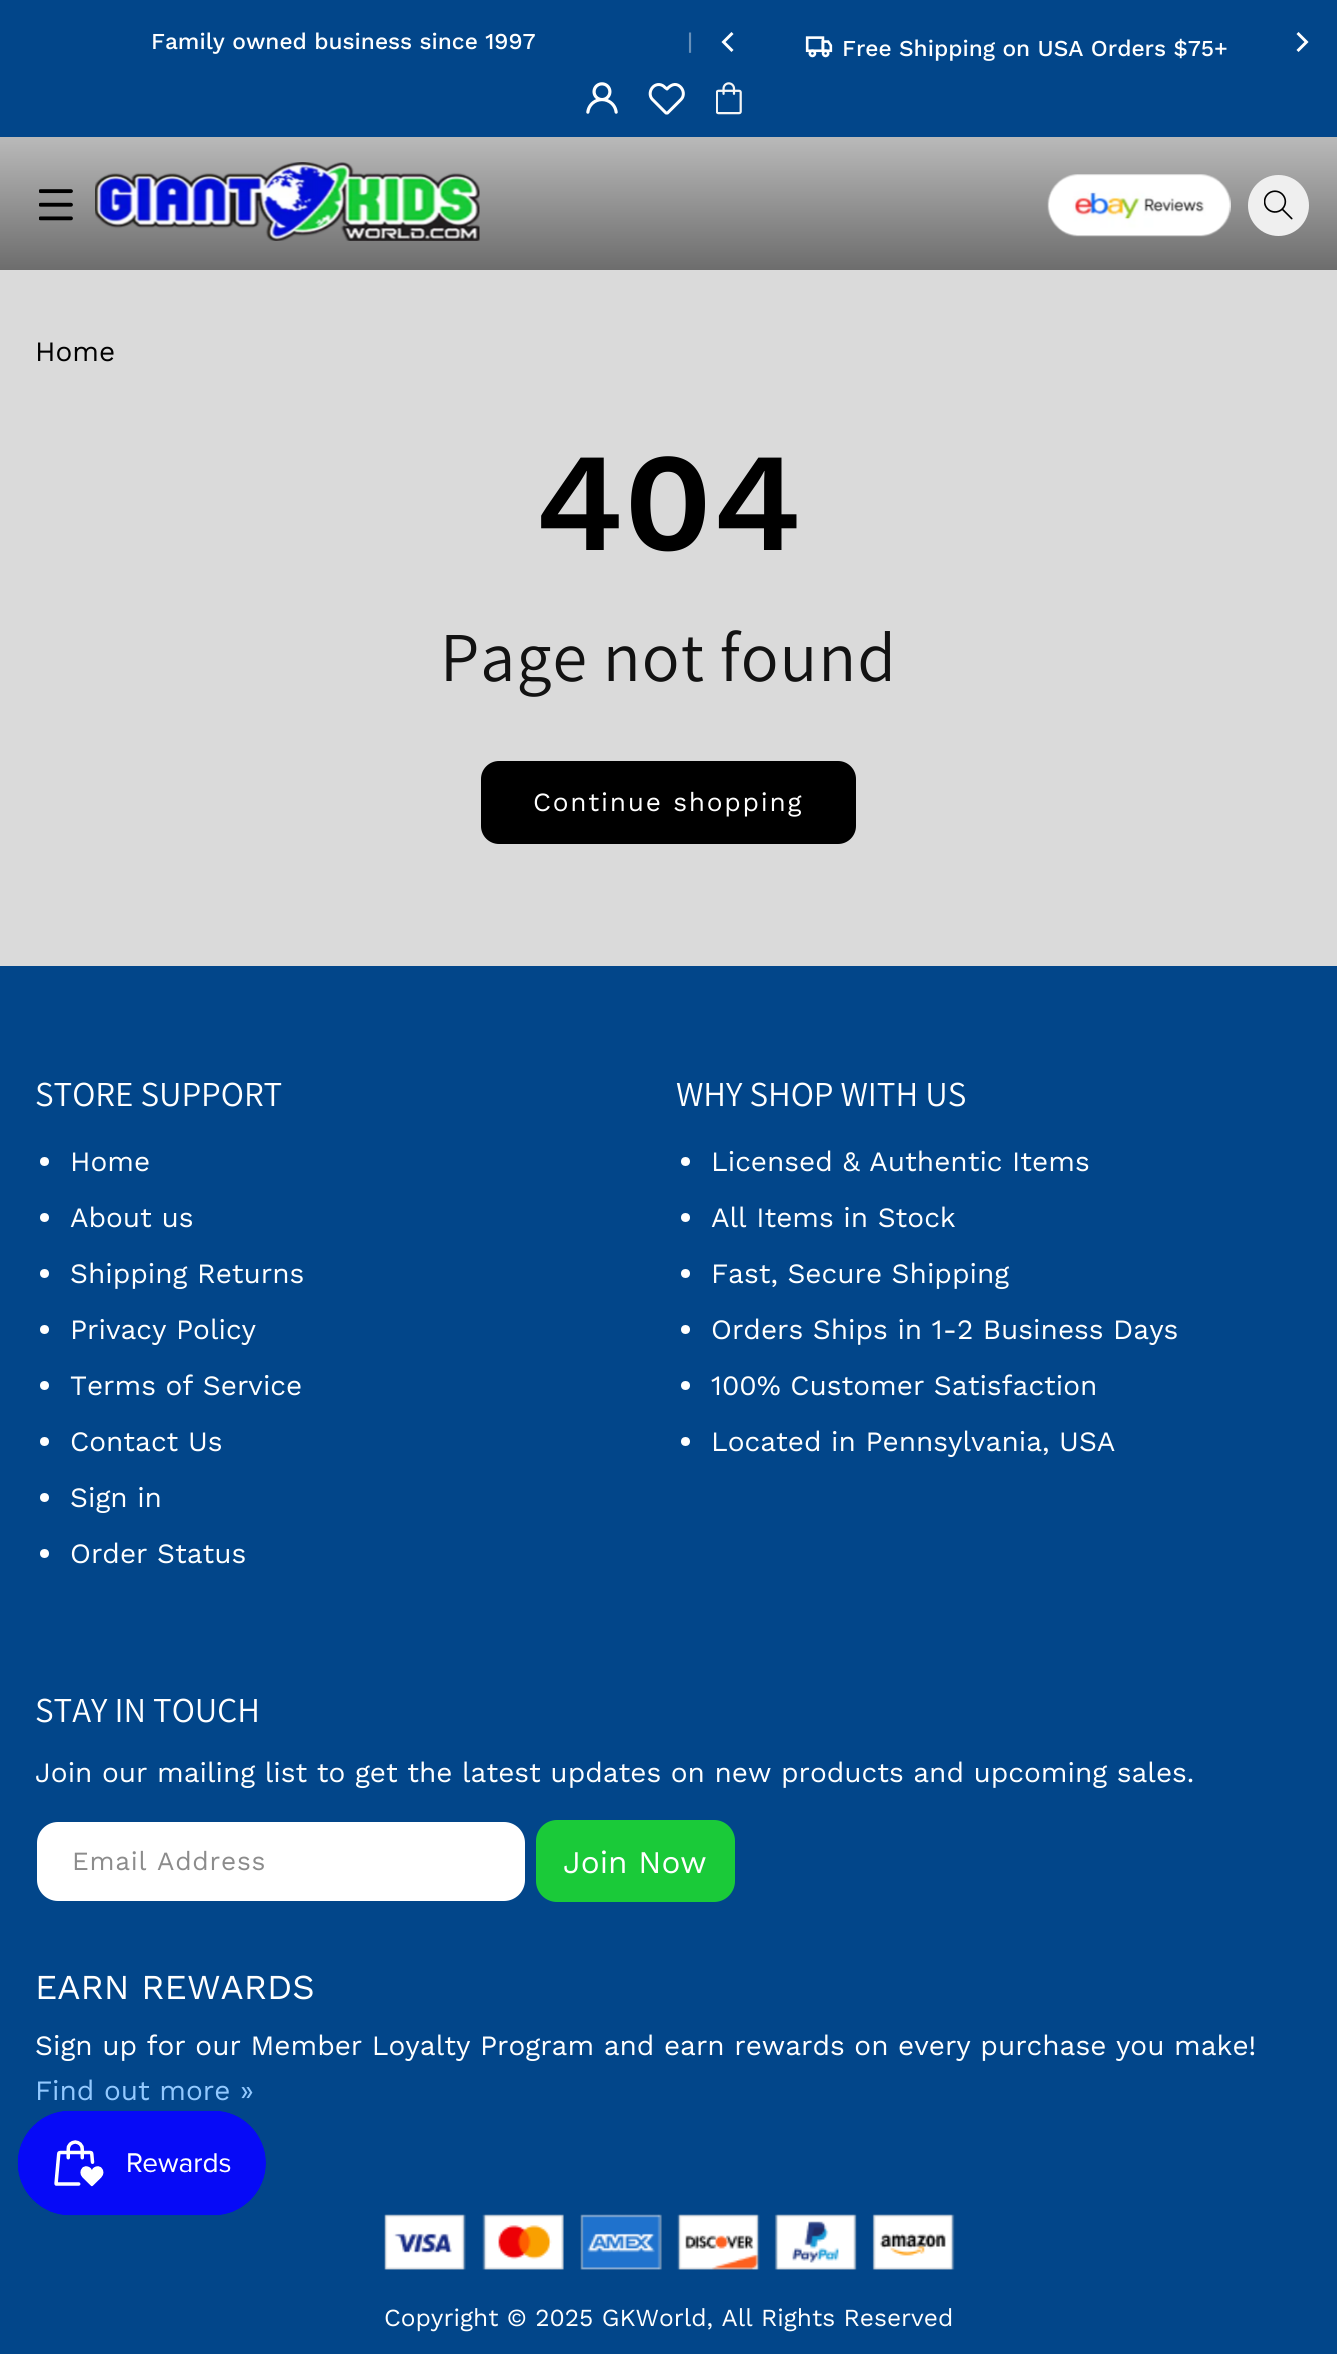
#include <cairo.h>
#include <math.h>
#include <stddef.h>


static void set_color(cairo_t *cr, unsigned color) {
    cairo_set_source_rgb(cr, (color >> 16) / 255.0, (color >> 8 & 255) / 255.0, (color & 255) / 255.0);
}

static void draw_text(cairo_t *cr, double x, double y, const char *s, const char *family, double size, int italic, int bold, unsigned color) {
    cairo_select_font_face(cr, family, italic ? CAIRO_FONT_SLANT_ITALIC : CAIRO_FONT_SLANT_NORMAL,
        bold ? CAIRO_FONT_WEIGHT_BOLD : CAIRO_FONT_WEIGHT_NORMAL);
    cairo_set_font_size(cr, size);
    set_color(cr, color);
    cairo_move_to(cr, x, y);
    cairo_show_text(cr, s);
}

static void draw_spaced(cairo_t *cr, double x, double y, const char *s, double letter, double word) {
    cairo_move_to(cr, x, y);
    while (*s) {
        char ch[5] = {0};
        int n = 0;
        do ch[n++] = *s++; while ((*s & 0xC0) == 0x80);
        cairo_show_text(cr, ch);
        cairo_rel_move_to(cr, letter + word * (*ch == ' '), 0);
    }
}

static void fill_rect(cairo_t *cr, double x, double y, double w, double h, unsigned color) {
    set_color(cr, color);
    cairo_rectangle(cr, x, y, w, h);
    cairo_fill(cr);
}

static void rounded_rect(cairo_t *cr, double x, double y, double w, double h, double r) {
    cairo_new_sub_path(cr);
    cairo_arc(cr, x + w - r, y + h - r, r, 0, M_PI / 2);
    cairo_arc(cr, x + r, y + h - r, r, M_PI / 2, M_PI);
    cairo_arc(cr, x + r, y + r, r, M_PI, 1.5 * M_PI);
    cairo_arc(cr, x + w - r, y + r, r, 1.5 * M_PI, 2 * M_PI);
    cairo_close_path(cr);
}

static void draw_image(cairo_t *cr, const char *path, double x, double y, double w, double h) {
    cairo_surface_t *image = cairo_image_surface_create_from_png(path);
    cairo_save(cr);
    cairo_set_source_surface(cr, image, x, y);
    cairo_rectangle(cr, x, y, w, h);
    cairo_fill(cr);
    cairo_restore(cr);
    cairo_surface_destroy(image);
}

int main(void) {
    cairo_surface_t *surface = cairo_image_surface_create(CAIRO_FORMAT_RGB24, 1337, 2354);
    cairo_t *cr = cairo_create(surface);
    cairo_font_options_t *options = cairo_font_options_create();
    cairo_font_options_set_hint_metrics(options, CAIRO_HINT_METRICS_OFF);
    cairo_font_options_set_hint_style(options, CAIRO_HINT_STYLE_NONE);
    cairo_set_font_options(cr, options);
    cairo_set_miter_limit(cr, 4);
    cairo_pattern_t *gradient;
    set_color(cr, 0xDADADA);
    cairo_paint(cr);
    fill_rect(cr, 0, 0, 1337, 137, 0x02468A);
    draw_text(cr, 151, 49, "Family owned business since 1997", "Work Sans Medium", 22.75, 0, 0, 0xFFFFFF);
    draw_text(cr, 687, 49, "|", "Work Sans Medium", 22.75, 0, 0, 0x6790B9);
    cairo_new_path(cr);
    cairo_move_to(cr, 732.5, 51);
    cairo_line_to(cr, 723.5, 42);
    cairo_line_to(cr, 732.5, 33);
    set_color(cr, 0xFFFFFF);
    cairo_set_line_width(cr, 2.9);
    cairo_stroke(cr);
    draw_image(cr, "assets/img1.png", 805, 36, 28, 22);
    draw_text(cr, 842, 56, "Free Shipping on USA Orders $75+", "Work Sans Medium", 22.75, 0, 0, 0xFFFFFF);
    cairo_new_path(cr);
    cairo_move_to(cr, 1297.5, 51);
    cairo_line_to(cr, 1306.5, 42);
    cairo_line_to(cr, 1297.5, 33);
    cairo_stroke(cr);
    draw_image(cr, "assets/img2.png", 586, 82, 32, 32);
    cairo_new_path(cr);
    cairo_move_to(cr, 680, 86.5);
    cairo_curve_to(cr, 675.5, 82.5, 670.5, 85, 667, 89);
    cairo_line_to(cr, 665, 87.5);
    cairo_curve_to(cr, 662, 84, 657, 83.5, 653.5, 86.5);
    cairo_curve_to(cr, 649.5, 90, 649, 96, 652.5, 99.5);
    cairo_line_to(cr, 666, 113);
    cairo_curve_to(cr, 666.5, 113, 667, 113, 667.5, 113);
    cairo_line_to(cr, 681, 99.5);
    cairo_curve_to(cr, 684.5, 96, 684, 90, 680, 86.5);
    cairo_close_path(cr);
    cairo_set_line_width(cr, 3);
    cairo_set_line_cap(cr, CAIRO_LINE_CAP_ROUND);
    cairo_set_line_join(cr, CAIRO_LINE_JOIN_ROUND);
    cairo_stroke(cr);
    draw_image(cr, "assets/img3.png", 716, 82, 26, 33);
    gradient = cairo_pattern_create_linear(669, 136, 669, 270);
    cairo_pattern_add_color_stop_rgba(gradient, 0, 0.729, 0.729, 0.729, 1);
    cairo_pattern_add_color_stop_rgba(gradient, 1, 0.427, 0.427, 0.427, 1);
    cairo_set_source(cr, gradient);
    cairo_pattern_destroy(gradient);
    cairo_rectangle(cr, 0, 137, 1337, 133);
    cairo_fill(cr);
    draw_image(cr, "assets/img4.png", 39, 189, 34, 32);
    draw_image(cr, "assets/img5.png", 95, 162, 385, 79);
    draw_image(cr, "assets/img6.png", 1047, 174, 184, 63);
    set_color(cr, 0xEFEFEF);
    cairo_arc(cr, 1278.5, 205.5, 30.5, 0, 2 * M_PI);
    cairo_fill(cr);
    draw_image(cr, "assets/img7.png", 1264, 190, 29, 30);
    draw_text(cr, 35, 361, "Home", "Work Sans", 28, 0, 0, 0x000000);
    draw_text(cr, 535, 550, "404", "Work Sans SemiBold", 140, 0, 0, 0x000000);
    cairo_select_font_face(cr, "Assistant", CAIRO_FONT_SLANT_NORMAL, CAIRO_FONT_WEIGHT_NORMAL);
    cairo_set_font_size(cr, 70);
    set_color(cr, 0x121212);
    draw_spaced(cr, 440, 681, "Page not found", 1, 0);
    set_color(cr, 0x000000);
    rounded_rect(cr, 481, 761, 375, 83, 18);
    cairo_fill(cr);
    cairo_select_font_face(cr, "Work Sans", CAIRO_FONT_SLANT_NORMAL, CAIRO_FONT_WEIGHT_NORMAL);
    cairo_set_font_size(cr, 26.25);
    set_color(cr, 0xFFFFFF);
    draw_spaced(cr, 533, 811, "Continue shopping", 1.75, 0);
    fill_rect(cr, 0, 966, 1337, 1388, 0x02468A);
    draw_text(cr, 35, 1106, "STORE SUPPORT", "Assistant", 35, 0, 0, 0xFFFFFF);
    cairo_new_path(cr);
    cairo_arc(cr, 44.5, 1161.5, 4.5, 0, 2 * M_PI);
    cairo_fill(cr);
    draw_text(cr, 70, 1171, "Home", "Work Sans", 28, 0, 0, 0xFFFFFF);
    cairo_new_path(cr);
    cairo_arc(cr, 44.5, 1217.5, 4.5, 0, 2 * M_PI);
    cairo_fill(cr);
    draw_text(cr, 70, 1227, "About us", "Work Sans", 28, 0, 0, 0xFFFFFF);
    cairo_new_path(cr);
    cairo_arc(cr, 44.5, 1273.5, 4.5, 0, 2 * M_PI);
    cairo_fill(cr);
    draw_text(cr, 70, 1283, "Shipping Returns", "Work Sans", 28, 0, 0, 0xFFFFFF);
    cairo_new_path(cr);
    cairo_arc(cr, 44.5, 1329.5, 4.5, 0, 2 * M_PI);
    cairo_fill(cr);
    draw_text(cr, 70, 1339, "Privacy Policy", "Work Sans", 28, 0, 0, 0xFFFFFF);
    cairo_new_path(cr);
    cairo_arc(cr, 44.5, 1385.5, 4.5, 0, 2 * M_PI);
    cairo_fill(cr);
    draw_text(cr, 70, 1395, "Terms of Service", "Work Sans", 28, 0, 0, 0xFFFFFF);
    cairo_new_path(cr);
    cairo_arc(cr, 44.5, 1441.5, 4.5, 0, 2 * M_PI);
    cairo_fill(cr);
    draw_text(cr, 70, 1451, "Contact Us", "Work Sans", 28, 0, 0, 0xFFFFFF);
    cairo_new_path(cr);
    cairo_arc(cr, 44.5, 1497.5, 4.5, 0, 2 * M_PI);
    cairo_fill(cr);
    draw_text(cr, 70, 1507, "Sign in", "Work Sans", 28, 0, 0, 0xFFFFFF);
    cairo_new_path(cr);
    cairo_arc(cr, 44.5, 1553.5, 4.5, 0, 2 * M_PI);
    cairo_fill(cr);
    draw_text(cr, 70, 1563, "Order Status", "Work Sans", 28, 0, 0, 0xFFFFFF);
    draw_text(cr, 676, 1106, "WHY SHOP WITH US", "Assistant", 35, 0, 0, 0xFFFFFF);
    cairo_new_path(cr);
    cairo_arc(cr, 685.5, 1161.5, 4.5, 0, 2 * M_PI);
    cairo_fill(cr);
    draw_text(cr, 711, 1171, "Licensed & Authentic Items", "Work Sans", 28, 0, 0, 0xFFFFFF);
    cairo_new_path(cr);
    cairo_arc(cr, 685.5, 1217.5, 4.5, 0, 2 * M_PI);
    cairo_fill(cr);
    draw_text(cr, 711, 1227, "All Items in Stock", "Work Sans", 28, 0, 0, 0xFFFFFF);
    cairo_new_path(cr);
    cairo_arc(cr, 685.5, 1273.5, 4.5, 0, 2 * M_PI);
    cairo_fill(cr);
    draw_text(cr, 711, 1283, "Fast, Secure Shipping", "Work Sans", 28, 0, 0, 0xFFFFFF);
    cairo_new_path(cr);
    cairo_arc(cr, 685.5, 1329.5, 4.5, 0, 2 * M_PI);
    cairo_fill(cr);
    draw_text(cr, 711, 1339, "Orders Ships in 1-2 Business Days", "Work Sans", 28, 0, 0, 0xFFFFFF);
    cairo_new_path(cr);
    cairo_arc(cr, 685.5, 1385.5, 4.5, 0, 2 * M_PI);
    cairo_fill(cr);
    draw_text(cr, 711, 1395, "100% Customer Satisfaction", "Work Sans", 28, 0, 0, 0xFFFFFF);
    cairo_new_path(cr);
    cairo_arc(cr, 685.5, 1441.5, 4.5, 0, 2 * M_PI);
    cairo_fill(cr);
    draw_text(cr, 711, 1451, "Located in Pennsylvania, USA", "Work Sans", 28, 0, 0, 0xFFFFFF);
    draw_text(cr, 35, 1722, "STAY IN TOUCH", "Assistant", 35, 0, 0, 0xFFFFFF);
    draw_text(cr, 35, 1782, "Join our mailing list to get the latest updates on new products and upcoming sales.", "Work Sans", 28, 0, 0, 0xFFFFFF);
    rounded_rect(cr, 37, 1822, 488, 79, 21);
    cairo_fill(cr);
    cairo_set_font_size(cr, 26.25);
    set_color(cr, 0x8C8C8C);
    draw_spaced(cr, 72, 1870, "Email Address", 0.75, 0);
    set_color(cr, 0x1ACA39);
    rounded_rect(cr, 537, 1821, 197, 80, 20);
    cairo_fill_preserve(cr);
    cairo_set_line_width(cr, 2);
    cairo_set_line_cap(cr, CAIRO_LINE_CAP_BUTT);
    cairo_set_line_join(cr, CAIRO_LINE_JOIN_MITER);
    cairo_stroke(cr);
    draw_text(cr, 563, 1873, "Join Now", "Work Sans", 31.5, 0, 0, 0xFFFFFF);
    draw_text(cr, 35, 1999, "EARN REWARDS", "Work Sans", 35, 0, 0, 0xFFFFFF);
    draw_text(cr, 35, 2055, "Sign up for our Member Loyalty Program and earn rewards on every purchase you make!", "Work Sans", 28, 0, 0, 0xFFFFFF);
    draw_text(cr, 35, 2100, "Find out more »", "Work Sans", 28, 0, 0, 0x93C9FF);
    draw_image(cr, "assets/img8.png", 384, 2214, 82, 56);
    draw_image(cr, "assets/img9.png", 482, 2214, 82, 56);
    draw_image(cr, "assets/img10.png", 580, 2214, 82, 56);
    draw_image(cr, "assets/img11.png", 677, 2214, 83, 56);
    draw_image(cr, "assets/img12.png", 774, 2214, 83, 56);
    draw_image(cr, "assets/img13.png", 872, 2214, 83, 56);
    draw_text(cr, 384, 2326, "Copyright © 2025 GKWorld, All Rights Reserved", "Work Sans", 24.5, 0, 0, 0xFFFFFF);
    draw_image(cr, "assets/img14.png", 17, 2110, 249, 106);
    cairo_surface_write_to_png(surface, "output.png");
    cairo_font_options_destroy(options);
    cairo_destroy(cr);
    cairo_surface_destroy(surface);
    return 0;
}
